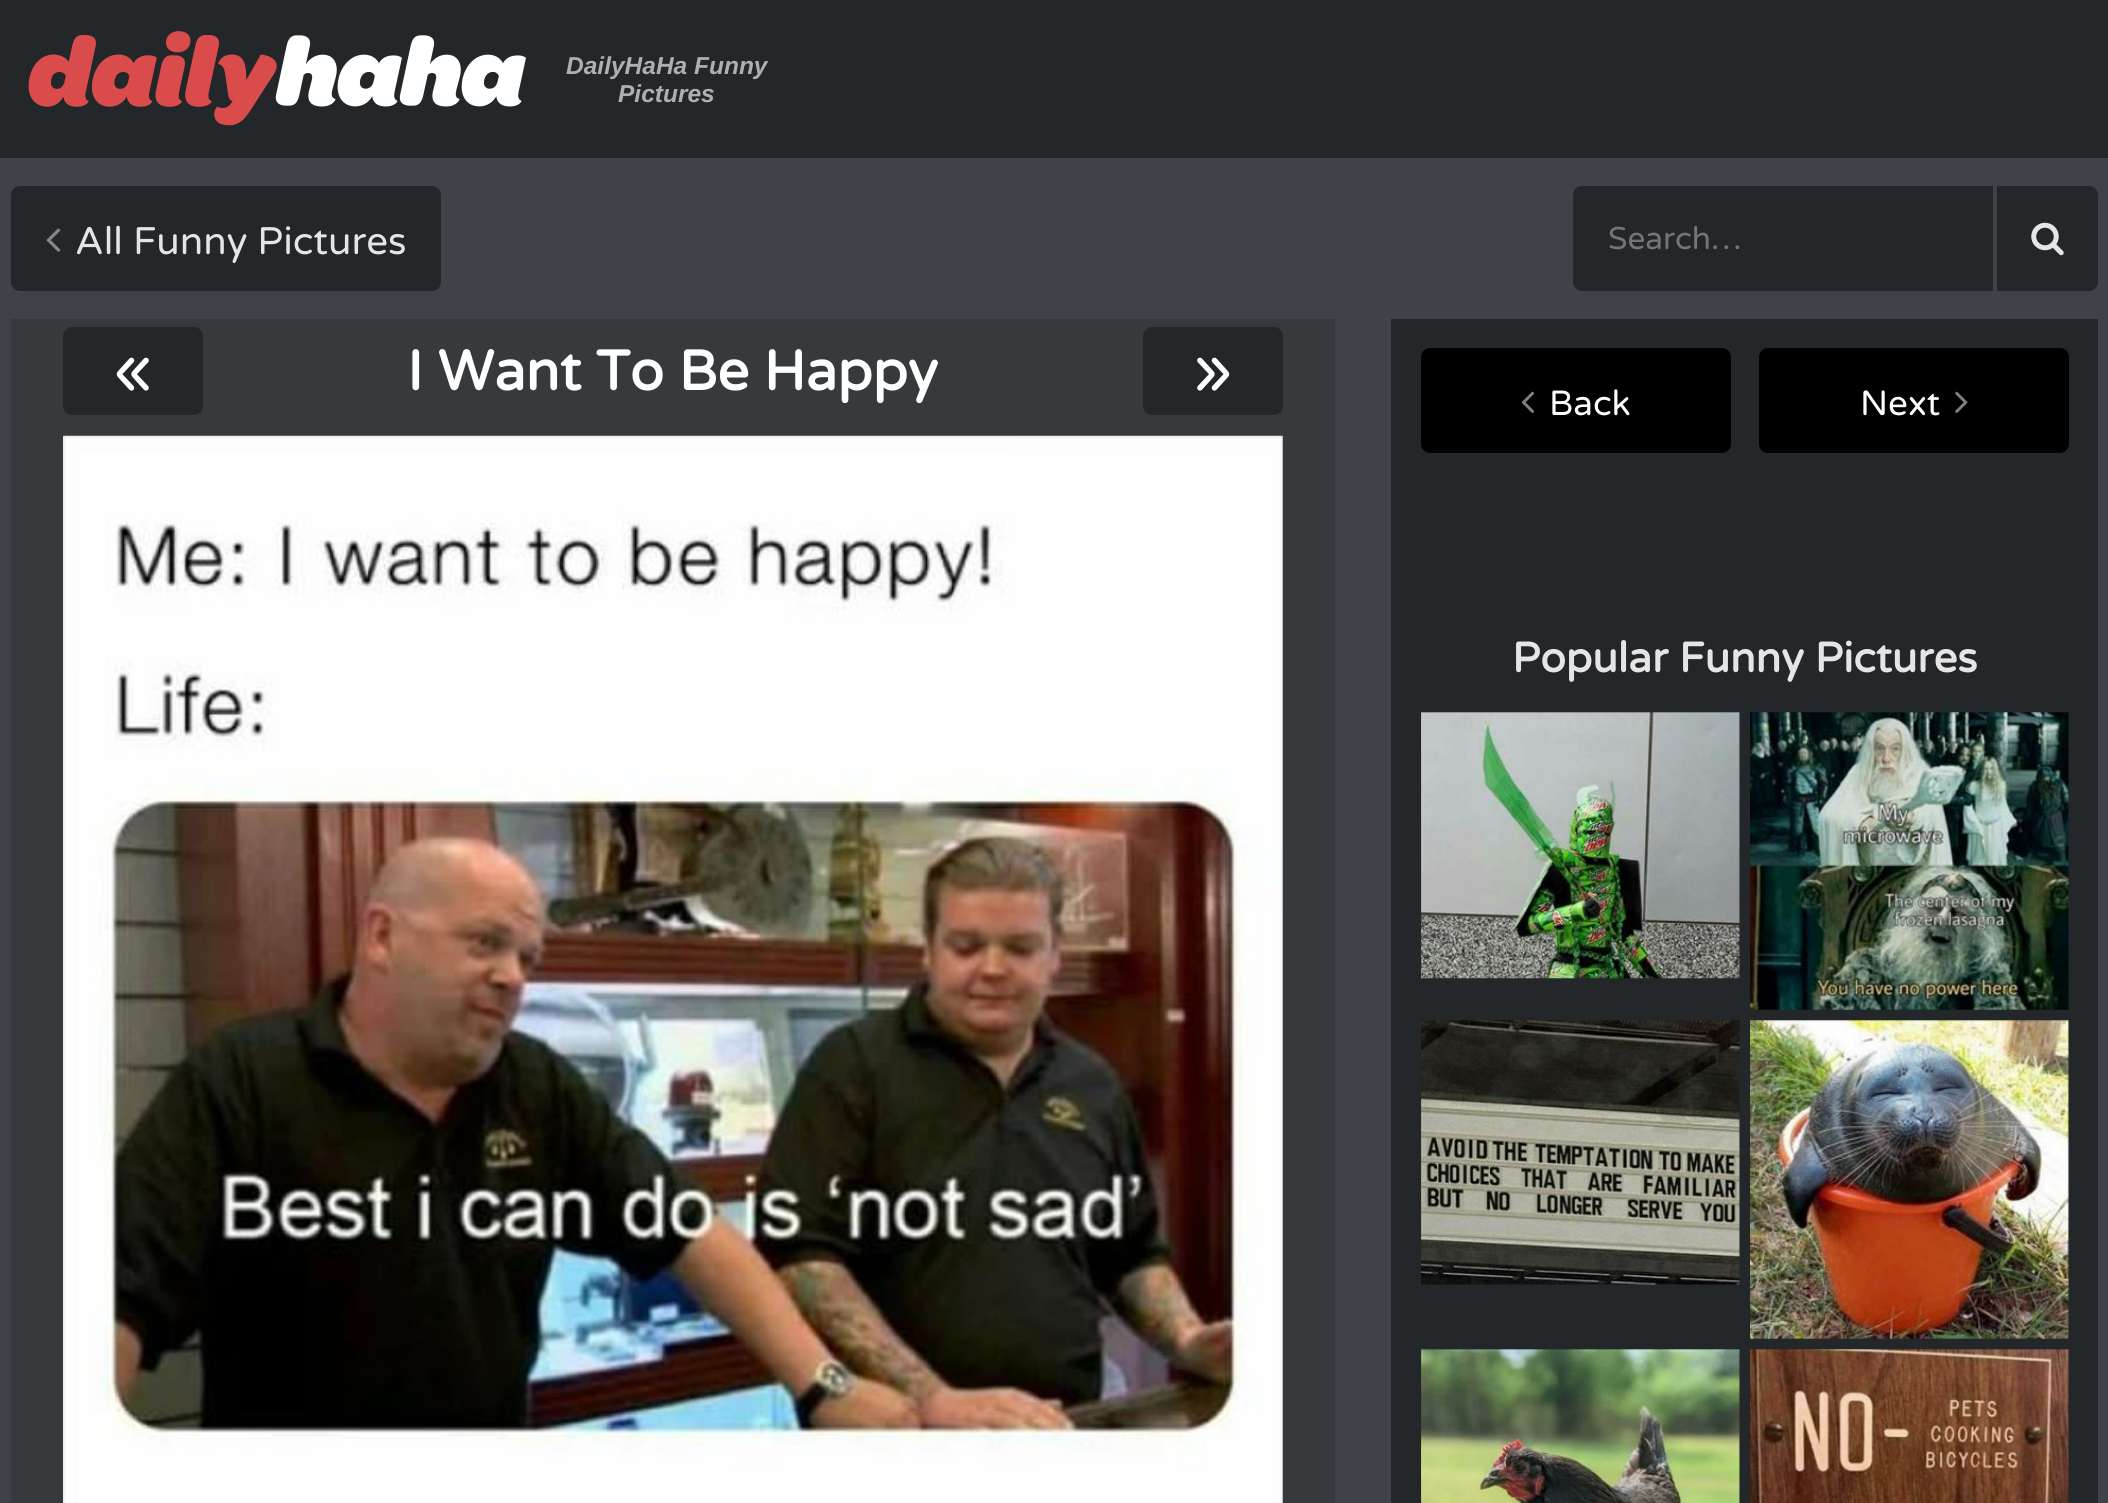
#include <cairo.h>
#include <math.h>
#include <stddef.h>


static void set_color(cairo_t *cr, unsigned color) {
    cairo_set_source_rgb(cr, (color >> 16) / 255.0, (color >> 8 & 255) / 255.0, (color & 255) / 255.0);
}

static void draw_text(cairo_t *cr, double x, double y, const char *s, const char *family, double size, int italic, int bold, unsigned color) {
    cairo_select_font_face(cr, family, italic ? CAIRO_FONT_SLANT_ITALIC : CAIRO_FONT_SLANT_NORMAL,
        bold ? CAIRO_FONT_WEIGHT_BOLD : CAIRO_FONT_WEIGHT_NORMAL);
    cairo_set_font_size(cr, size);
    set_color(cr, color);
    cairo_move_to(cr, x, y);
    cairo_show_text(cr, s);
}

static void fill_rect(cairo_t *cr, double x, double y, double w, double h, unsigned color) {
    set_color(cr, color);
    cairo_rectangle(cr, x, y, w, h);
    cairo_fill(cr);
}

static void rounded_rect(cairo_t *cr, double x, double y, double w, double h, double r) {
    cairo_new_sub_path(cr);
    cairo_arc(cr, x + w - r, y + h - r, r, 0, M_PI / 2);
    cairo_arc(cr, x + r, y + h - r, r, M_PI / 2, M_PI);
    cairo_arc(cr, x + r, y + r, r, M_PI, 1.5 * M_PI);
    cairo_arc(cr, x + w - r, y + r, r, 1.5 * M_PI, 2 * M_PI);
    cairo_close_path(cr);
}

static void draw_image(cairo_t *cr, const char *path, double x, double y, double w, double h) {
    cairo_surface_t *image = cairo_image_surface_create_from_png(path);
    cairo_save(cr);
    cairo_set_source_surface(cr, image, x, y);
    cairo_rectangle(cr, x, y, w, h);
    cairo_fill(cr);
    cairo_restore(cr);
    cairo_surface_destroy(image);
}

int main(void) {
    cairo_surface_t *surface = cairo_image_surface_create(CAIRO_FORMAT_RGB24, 2108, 1503);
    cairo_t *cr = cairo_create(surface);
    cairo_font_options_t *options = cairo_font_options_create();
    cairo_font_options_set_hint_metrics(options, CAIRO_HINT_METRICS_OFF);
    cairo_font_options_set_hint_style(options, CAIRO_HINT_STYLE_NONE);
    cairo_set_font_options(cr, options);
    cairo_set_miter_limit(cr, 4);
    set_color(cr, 0x3F4246);
    cairo_paint(cr);
    fill_rect(cr, 0, 0, 2108, 158, 0x24272A);
    draw_image(cr, "assets/img1.png", 28, 31, 498, 95);
    draw_text(cr, 566, 74, "DailyHaHa Funny", "Liberation Sans", 24.5, 1, 1, 0xAFAFAF);
    draw_text(cr, 618, 102, "Pictures", "Liberation Sans", 24.5, 1, 1, 0xAFAFAF);
    set_color(cr, 0x24272A);
    rounded_rect(cr, 11, 186, 430, 105, 9);
    cairo_fill(cr);
    draw_image(cr, "assets/img2.png", 46, 228, 15, 24);
    draw_text(cr, 75, 254, "All Funny Pictures", "Varela Round", 38.5, 0, 0, 0xE5E5E5);
    set_color(cr, 0x24272A);
    rounded_rect(cr, 1573, 186, 525, 105, 9);
    cairo_fill(cr);
    draw_text(cr, 1608, 249, "Search…", "Varela Round", 31.5, 0, 0, 0x757575);
    fill_rect(cr, 1993, 186, 4, 105, 0x3F4246);
    draw_image(cr, "assets/img3.png", 2031, 222, 33, 34);
    fill_rect(cr, 11, 319, 1324, 1184, 0x363A3D);
    set_color(cr, 0x24272A);
    rounded_rect(cr, 63, 327, 140, 88, 9);
    cairo_fill(cr);
    draw_text(cr, 113, 392, "«", "Varela Round", 70, 0, 0, 0xFFFFFF);
    draw_text(cr, 407, 390, "I Want To Be Happy", "Varela Round", 56, 0, 1, 0xFFFFFF);
    set_color(cr, 0x24272A);
    rounded_rect(cr, 1143, 327, 140, 88, 9);
    cairo_fill(cr);
    draw_text(cr, 1192, 392, "»", "Varela Round", 70, 0, 0, 0xFFFFFF);
    draw_image(cr, "assets/img4.png", 63, 435, 1220, 1068);
    fill_rect(cr, 1391, 319, 707, 1184, 0x24272A);
    set_color(cr, 0x000000);
    rounded_rect(cr, 1421, 348, 310, 105, 9);
    cairo_fill(cr);
    draw_image(cr, "assets/img5.png", 1521, 391, 14, 22);
    draw_text(cr, 1549, 415, "Back", "Varela Round", 35, 0, 0, 0xFFFFFF);
    set_color(cr, 0x000000);
    rounded_rect(cr, 1759, 348, 310, 105, 9);
    cairo_fill(cr);
    draw_text(cr, 1860, 415, "Next", "Varela Round", 35, 0, 0, 0xFFFFFF);
    draw_image(cr, "assets/img6.png", 1955, 391, 13, 22);
    draw_text(cr, 1512, 672, "Popular Funny Pictures", "Varela Round", 42, 0, 1, 0xE5E5E5);
    draw_image(cr, "assets/img7.png", 1421, 712, 319, 267);
    draw_image(cr, "assets/img8.png", 1750, 712, 319, 298);
    draw_image(cr, "assets/img9.png", 1421, 1020, 319, 265);
    draw_image(cr, "assets/img10.png", 1750, 1020, 319, 319);
    draw_image(cr, "assets/img11.png", 1421, 1349, 319, 154);
    draw_image(cr, "assets/img12.png", 1750, 1349, 319, 154);
    cairo_surface_write_to_png(surface, "output.png");
    cairo_font_options_destroy(options);
    cairo_destroy(cr);
    cairo_surface_destroy(surface);
    return 0;
}
